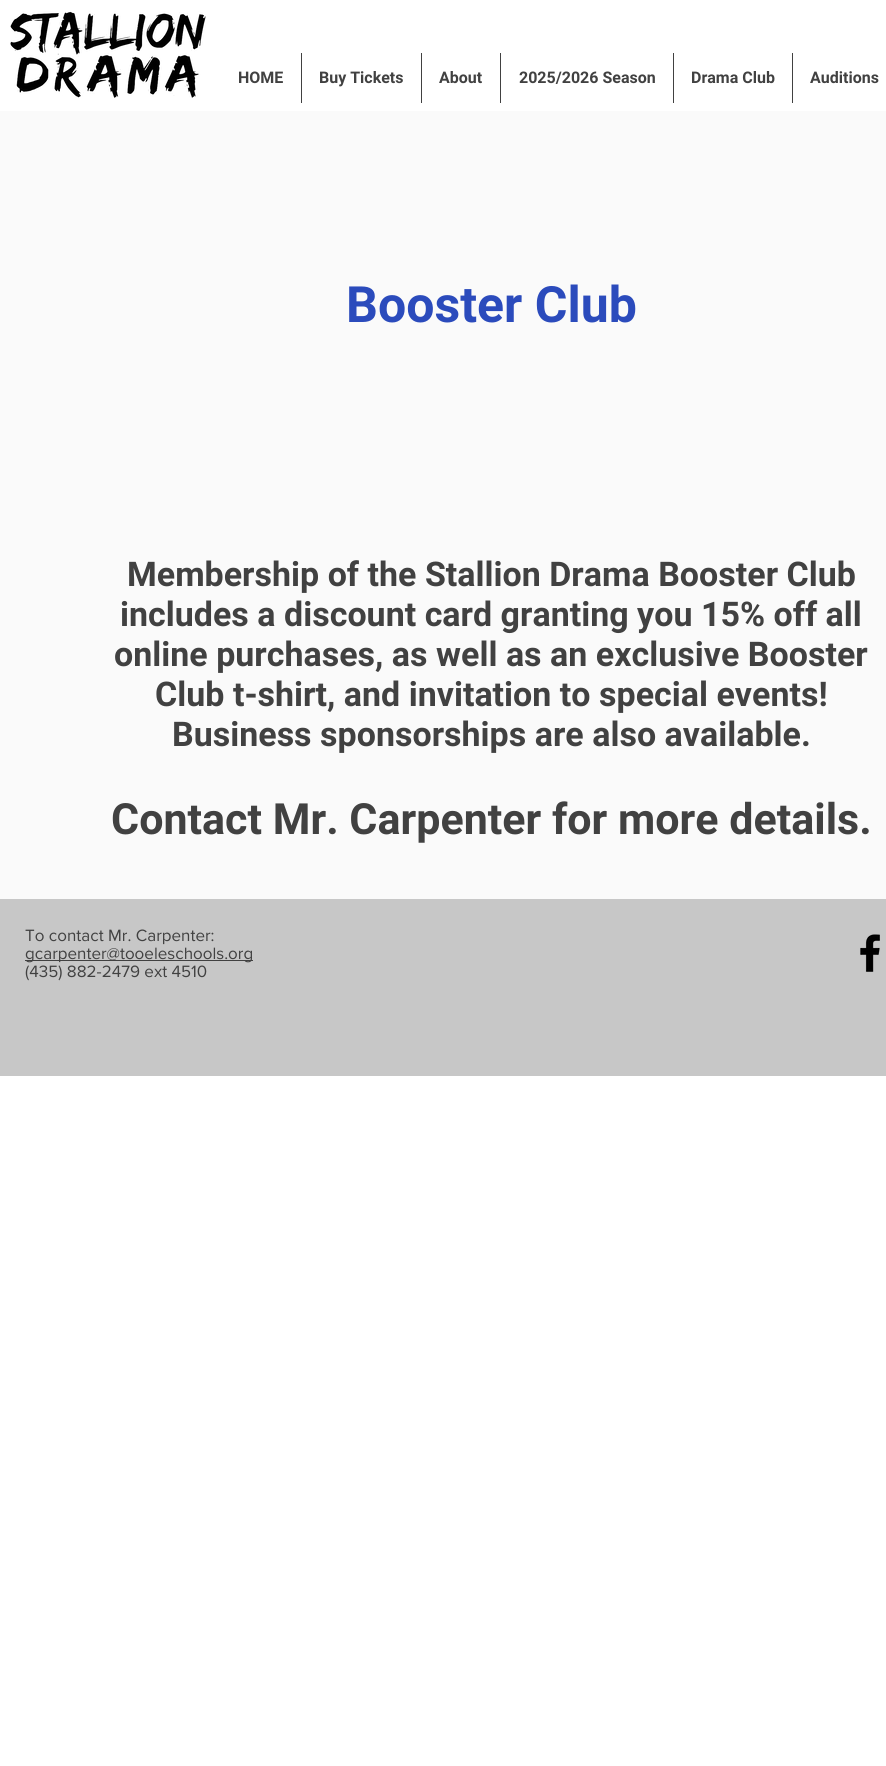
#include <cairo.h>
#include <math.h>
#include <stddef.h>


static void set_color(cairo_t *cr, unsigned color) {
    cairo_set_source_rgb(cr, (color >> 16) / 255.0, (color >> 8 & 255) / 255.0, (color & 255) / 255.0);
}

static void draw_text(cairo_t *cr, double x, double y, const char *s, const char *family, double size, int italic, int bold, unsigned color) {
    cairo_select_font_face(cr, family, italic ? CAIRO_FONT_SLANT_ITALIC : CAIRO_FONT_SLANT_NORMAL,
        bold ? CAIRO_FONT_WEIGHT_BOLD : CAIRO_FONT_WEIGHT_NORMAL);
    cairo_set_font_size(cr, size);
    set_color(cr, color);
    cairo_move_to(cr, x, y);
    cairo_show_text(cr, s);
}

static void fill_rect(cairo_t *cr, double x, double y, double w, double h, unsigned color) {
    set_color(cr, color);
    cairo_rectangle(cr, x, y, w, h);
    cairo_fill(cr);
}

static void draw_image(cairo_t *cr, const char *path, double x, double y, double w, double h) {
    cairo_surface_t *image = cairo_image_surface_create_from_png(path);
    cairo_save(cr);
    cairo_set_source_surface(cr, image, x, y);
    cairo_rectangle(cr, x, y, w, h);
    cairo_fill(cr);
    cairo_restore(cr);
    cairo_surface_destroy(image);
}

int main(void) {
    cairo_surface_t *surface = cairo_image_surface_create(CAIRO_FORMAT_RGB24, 886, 1766);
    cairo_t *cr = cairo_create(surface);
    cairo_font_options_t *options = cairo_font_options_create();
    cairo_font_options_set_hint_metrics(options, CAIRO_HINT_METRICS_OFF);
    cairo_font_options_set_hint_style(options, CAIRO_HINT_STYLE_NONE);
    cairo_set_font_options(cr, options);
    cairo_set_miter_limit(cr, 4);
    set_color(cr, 0xFFFFFF);
    cairo_paint(cr);
    draw_image(cr, "assets/img1.png", 10, 11, 196, 87);
    draw_text(cr, 238, 83, "HOME", "Roboto", 16, 0, 1, 0x414141);
    fill_rect(cr, 301, 53, 1, 50, 0x414141);
    draw_text(cr, 319, 83, "Buy Tickets", "Roboto", 16, 0, 1, 0x414141);
    fill_rect(cr, 421, 53, 1, 50, 0x414141);
    draw_text(cr, 439, 83, "About", "Roboto", 16, 0, 1, 0x414141);
    fill_rect(cr, 500, 53, 1, 50, 0x414141);
    draw_text(cr, 519, 83, "2025/2026 Season", "Roboto", 16, 0, 1, 0x414141);
    fill_rect(cr, 673, 53, 1, 50, 0x414141);
    draw_text(cr, 691, 83, "Drama Club", "Roboto", 16, 0, 1, 0x414141);
    fill_rect(cr, 792, 53, 1, 50, 0x414141);
    draw_text(cr, 810, 83, "Auditions", "Roboto", 16, 0, 1, 0x414141);
    fill_rect(cr, 0, 111, 886, 788, 0xFAFAFA);
    draw_text(cr, 346, 322, "Booster Club", "Roboto", 50, 0, 1, 0x2B4BBC);
    draw_text(cr, 127, 586, "Membership of the Stallion Drama Booster Club", "Roboto", 34, 0, 1, 0x414141);
    draw_text(cr, 120, 626, "includes a discount card granting you 15% off all", "Roboto", 34, 0, 1, 0x414141);
    draw_text(cr, 114, 666, "online purchases, as well as an exclusive Booster", "Roboto", 34, 0, 1, 0x414141);
    draw_text(cr, 155, 706, "Club t-shirt, and invitation to special events!", "Roboto", 34, 0, 1, 0x414141);
    draw_text(cr, 172, 746, "Business sponsorships are also available.", "Roboto", 34, 0, 1, 0x414141);
    draw_text(cr, 111, 834, "Contact Mr. Carpenter for more details.", "Roboto", 43, 0, 1, 0x414141);
    fill_rect(cr, 0, 899, 886, 177, 0xC7C7C7);
    draw_text(cr, 25, 941, "To contact Mr. Carpenter:", "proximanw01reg", 17, 0, 0, 0x414141);
    fill_rect(cr, 25, 960, 228, 1, 0x414141);
    draw_text(cr, 25, 959, "gcarpenter@tooeleschools.org", "proximanw01reg", 17, 0, 0, 0x414141);
    draw_text(cr, 25, 977, "(435) 882-2479 ext 4510", "proximanw01reg", 17, 0, 0, 0x414141);
    draw_image(cr, "assets/img2.png", 860, 934, 20, 38);
    cairo_surface_write_to_png(surface, "output.png");
    cairo_font_options_destroy(options);
    cairo_destroy(cr);
    cairo_surface_destroy(surface);
    return 0;
}
